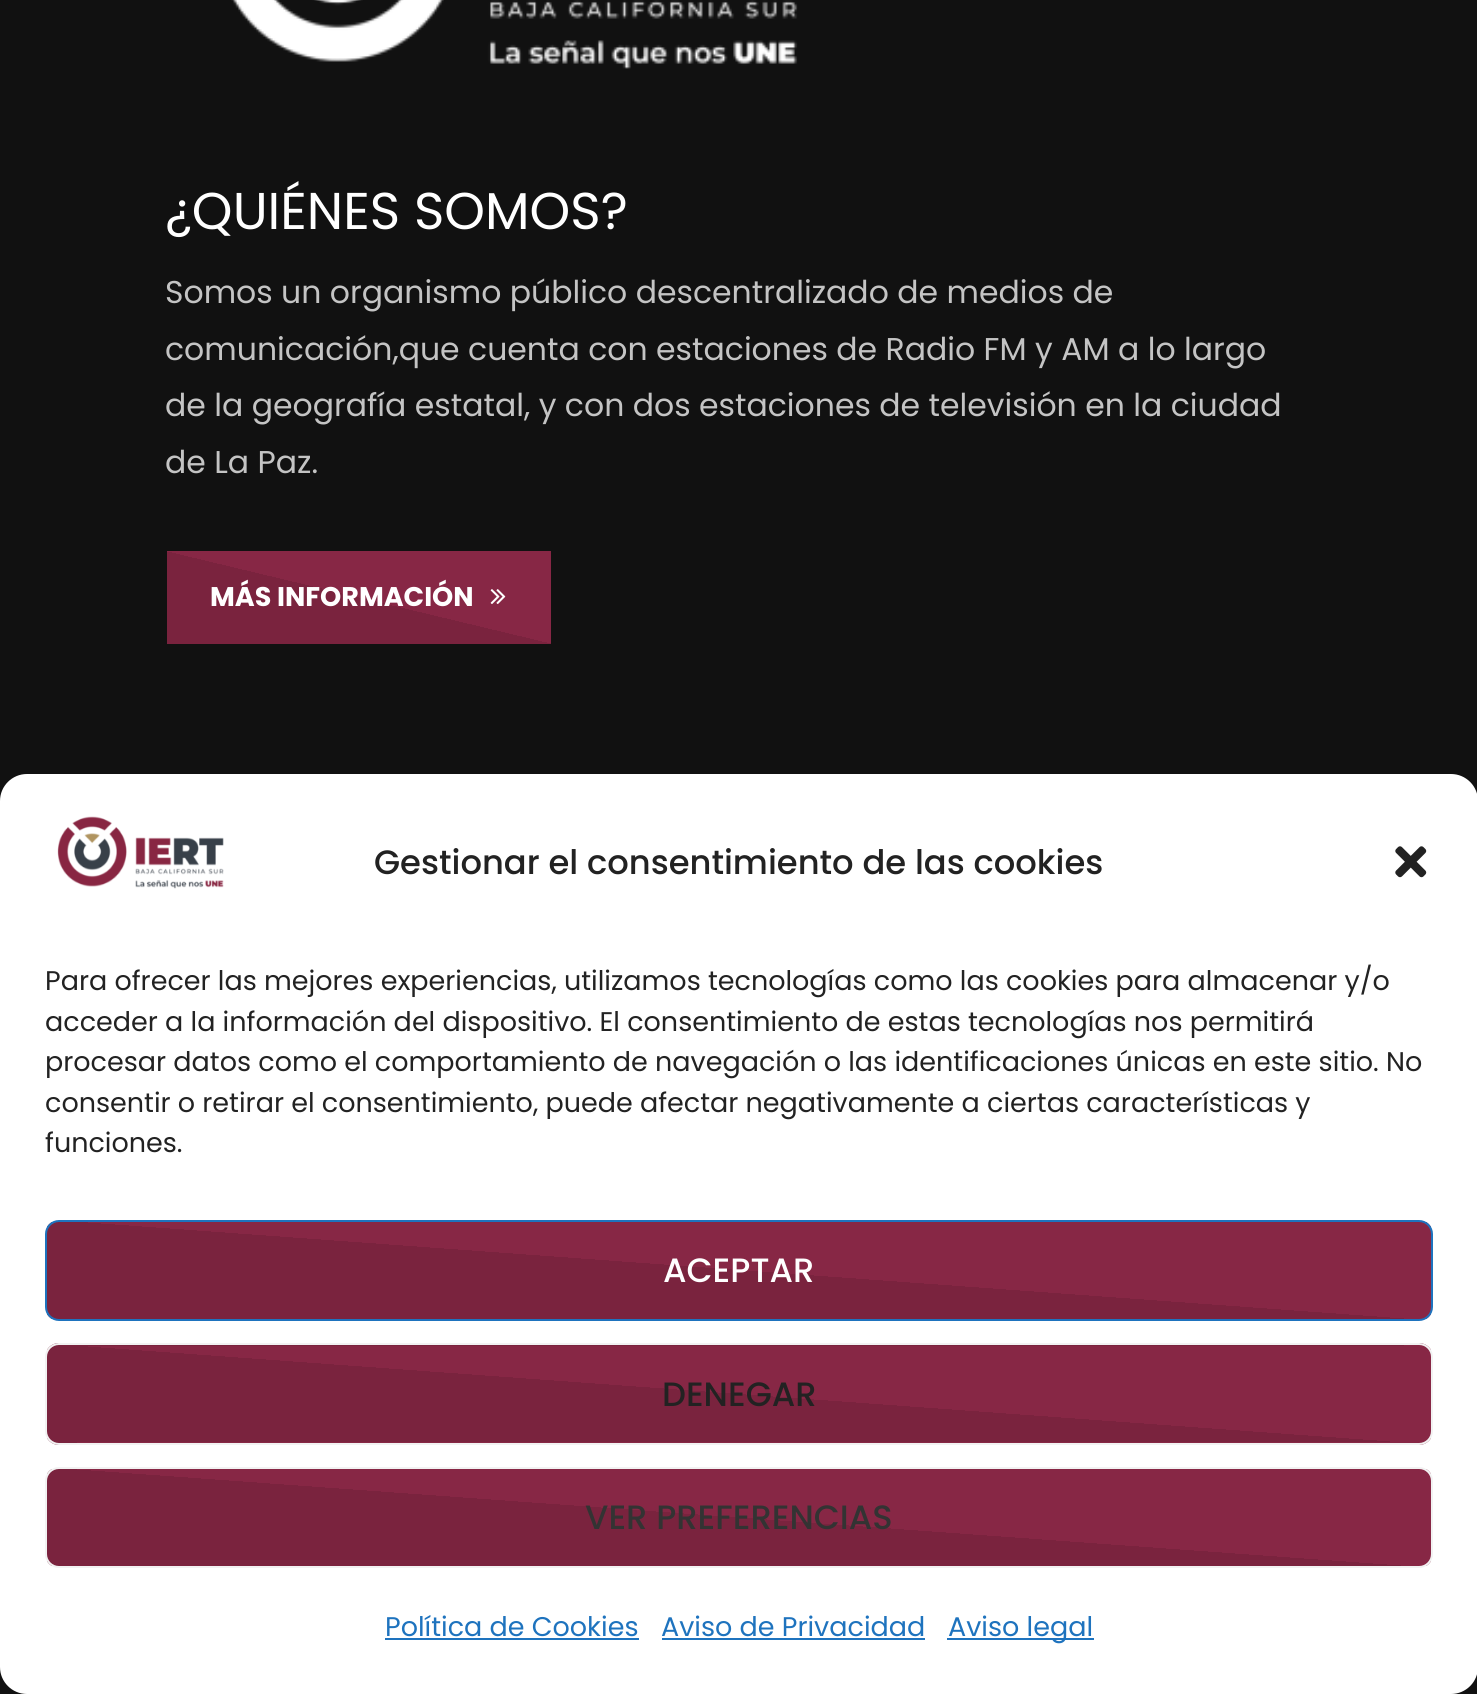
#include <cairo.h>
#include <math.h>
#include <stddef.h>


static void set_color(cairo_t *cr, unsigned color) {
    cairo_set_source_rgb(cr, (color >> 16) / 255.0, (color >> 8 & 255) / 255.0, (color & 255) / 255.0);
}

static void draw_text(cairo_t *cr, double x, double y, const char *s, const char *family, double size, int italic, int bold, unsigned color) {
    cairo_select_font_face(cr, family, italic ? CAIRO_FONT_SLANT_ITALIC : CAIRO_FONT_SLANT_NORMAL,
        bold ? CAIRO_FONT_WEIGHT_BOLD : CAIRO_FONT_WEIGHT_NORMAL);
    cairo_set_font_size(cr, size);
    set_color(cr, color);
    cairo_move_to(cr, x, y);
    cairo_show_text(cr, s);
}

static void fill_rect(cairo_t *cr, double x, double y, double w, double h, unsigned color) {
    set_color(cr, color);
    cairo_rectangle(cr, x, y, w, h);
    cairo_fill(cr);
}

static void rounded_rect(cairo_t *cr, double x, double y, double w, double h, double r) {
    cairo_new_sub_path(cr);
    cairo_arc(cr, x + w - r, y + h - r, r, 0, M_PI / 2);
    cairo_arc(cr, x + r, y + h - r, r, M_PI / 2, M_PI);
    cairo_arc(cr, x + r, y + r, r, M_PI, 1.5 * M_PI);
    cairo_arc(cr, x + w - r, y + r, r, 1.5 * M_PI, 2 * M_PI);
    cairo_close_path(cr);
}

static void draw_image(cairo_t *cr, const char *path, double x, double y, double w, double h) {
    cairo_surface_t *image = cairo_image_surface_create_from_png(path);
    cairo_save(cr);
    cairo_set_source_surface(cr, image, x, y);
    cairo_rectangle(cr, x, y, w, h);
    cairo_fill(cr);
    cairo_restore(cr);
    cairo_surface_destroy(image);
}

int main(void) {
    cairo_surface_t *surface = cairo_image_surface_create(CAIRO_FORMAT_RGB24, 1477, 1694);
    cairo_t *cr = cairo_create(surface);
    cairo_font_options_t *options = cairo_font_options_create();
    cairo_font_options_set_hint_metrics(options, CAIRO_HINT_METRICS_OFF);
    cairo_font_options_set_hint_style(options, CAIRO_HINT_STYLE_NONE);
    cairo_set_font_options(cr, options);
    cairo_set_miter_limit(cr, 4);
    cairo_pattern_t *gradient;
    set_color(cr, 0x111111);
    cairo_paint(cr);
    draw_image(cr, "assets/img1.png", 231, 0, 567, 69);
    draw_text(cr, 165, 229, "¿QUIÉNES SOMOS?", "Poppins", 51.75, 0, 0, 0xFFFFFF);
    draw_text(cr, 165, 303, "Somos un organismo público descentralizado de medios de", "Poppins", 31.5, 0, 0, 0xC4C4C4);
    draw_text(cr, 165, 360, "comunicación,que cuenta con estaciones de Radio FM y AM a lo largo", "Poppins", 31.5, 0, 0, 0xC4C4C4);
    draw_text(cr, 165, 416, "de la geografía estatal, y con dos estaciones de televisión en la ciudad", "Poppins", 31.5, 0, 0, 0xC4C4C4);
    draw_text(cr, 165, 473, "de La Paz.", "Poppins", 31.5, 0, 0, 0xC4C4C4);
    gradient = cairo_pattern_create_linear(380, 510, 338, 685);
    cairo_pattern_add_color_stop_rgba(gradient, 0.5, 0.529, 0.153, 0.271, 1);
    cairo_pattern_add_color_stop_rgba(gradient, 0.5, 0.478, 0.137, 0.243, 1);
    cairo_set_source(cr, gradient);
    cairo_pattern_destroy(gradient);
    cairo_rectangle(cr, 167, 551, 384, 93);
    cairo_fill(cr);
    draw_text(cr, 210, 606, "MÁS INFORMACIÓN", "Poppins", 27, 0, 1, 0xFFFFFF);
    draw_image(cr, "assets/img2.png", 490, 589, 16, 15);
    rounded_rect(cr, 0, 774, 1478, 920, 27);
    cairo_fill(cr);
    draw_image(cr, "assets/img3.png", 57, 816, 167, 73);
    draw_text(cr, 374, 874, "Gestionar el consentimiento de las cookies", "Poppins Medium", 33.75, 0, 0, 0x222222);
    draw_image(cr, "assets/img4.png", 1395, 846, 32, 32);
    draw_text(cr, 45, 990, "Para ofrecer las mejores experiencias, utilizamos tecnologías como las cookies para almacenar y/o", "Poppins", 27, 0, 0, 0x222222);
    draw_text(cr, 45, 1031, "acceder a la información del dispositivo. El consentimiento de estas tecnologías nos permitirá", "Poppins", 27, 0, 0, 0x222222);
    draw_text(cr, 45, 1071, "procesar datos como el comportamiento de navegación o las identificaciones únicas en este sitio. No", "Poppins", 27, 0, 0, 0x222222);
    draw_text(cr, 45, 1112, "consentir o retirar el consentimiento, puede afectar negativamente a ciertas características y", "Poppins", 27, 0, 0, 0x222222);
    draw_text(cr, 45, 1152, "funciones.", "Poppins", 27, 0, 0, 0x222222);
    cairo_save(cr);
    rounded_rect(cr, 45, 1220, 1388, 101, 14);
    cairo_clip(cr);
    gradient = cairo_pattern_create_linear(746, 1174, 732, 1366);
    cairo_pattern_add_color_stop_rgba(gradient, 0.5, 0.529, 0.153, 0.271, 1);
    cairo_pattern_add_color_stop_rgba(gradient, 0.5, 0.478, 0.137, 0.243, 1);
    cairo_set_source(cr, gradient);
    cairo_pattern_destroy(gradient);
    cairo_rectangle(cr, 47, 1222, 1384, 97);
    cairo_fill(cr);
    cairo_restore(cr);
    rounded_rect(cr, 46, 1221, 1386, 99, 13);
    set_color(cr, 0x1E73BE);
    cairo_stroke(cr);
    draw_text(cr, 663, 1282, "ACEPTAR", "Poppins Medium", 33.75, 0, 0, 0xFFFFFF);
    cairo_save(cr);
    rounded_rect(cr, 45, 1343, 1388, 102, 14);
    cairo_clip(cr);
    gradient = cairo_pattern_create_linear(746, 1201, 732, 1393);
    cairo_pattern_add_color_stop_rgba(gradient, 0.5, 0.529, 0.153, 0.271, 1);
    cairo_pattern_add_color_stop_rgba(gradient, 0.5, 0.478, 0.137, 0.243, 1);
    cairo_set_source(cr, gradient);
    cairo_pattern_destroy(gradient);
    cairo_rectangle(cr, 47, 1343, 1384, 3);
    cairo_fill(cr);
    gradient = cairo_pattern_create_linear(746, 1298, 732, 1490);
    cairo_pattern_add_color_stop_rgba(gradient, 0.5, 0.529, 0.153, 0.271, 1);
    cairo_pattern_add_color_stop_rgba(gradient, 0.5, 0.478, 0.137, 0.243, 1);
    cairo_set_source(cr, gradient);
    cairo_pattern_destroy(gradient);
    cairo_rectangle(cr, 47, 1346, 1384, 96);
    cairo_fill(cr);
    gradient = cairo_pattern_create_linear(746, 1394, 732, 1587);
    cairo_pattern_add_color_stop_rgba(gradient, 0.5, 0.529, 0.153, 0.271, 1);
    cairo_pattern_add_color_stop_rgba(gradient, 0.5, 0.478, 0.137, 0.243, 1);
    cairo_set_source(cr, gradient);
    cairo_pattern_destroy(gradient);
    cairo_rectangle(cr, 47, 1442, 1384, 3);
    cairo_fill(cr);
    cairo_restore(cr);
    rounded_rect(cr, 46, 1344, 1386, 100, 13);
    set_color(cr, 0xF2F2F2);
    cairo_stroke(cr);
    draw_text(cr, 662, 1406, "DENEGAR", "Poppins Medium", 33.75, 0, 0, 0x222222);
    cairo_save(cr);
    rounded_rect(cr, 45, 1467, 1388, 101, 14);
    cairo_clip(cr);
    gradient = cairo_pattern_create_linear(746, 1421, 732, 1614);
    cairo_pattern_add_color_stop_rgba(gradient, 0.5, 0.529, 0.153, 0.271, 1);
    cairo_pattern_add_color_stop_rgba(gradient, 0.5, 0.478, 0.137, 0.243, 1);
    cairo_set_source(cr, gradient);
    cairo_pattern_destroy(gradient);
    cairo_rectangle(cr, 47, 1469, 1384, 97);
    cairo_fill(cr);
    cairo_restore(cr);
    rounded_rect(cr, 46, 1468, 1386, 99, 13);
    set_color(cr, 0xF2F2F2);
    cairo_stroke(cr);
    draw_text(cr, 585, 1529, "VER PREFERENCIAS", "Poppins Medium", 33.75, 0, 0, 0x333333);
    draw_text(cr, 385, 1636, "Política de Cookies", "Poppins", 27, 0, 0, 0x1E73BE);
    fill_rect(cr, 385, 1638, 254, 2, 0x1E73BE);
    draw_text(cr, 661, 1636, "Aviso de Privacidad", "Poppins", 27, 0, 0, 0x1E73BE);
    fill_rect(cr, 662, 1638, 263, 2, 0x1E73BE);
    fill_rect(cr, 947, 1638, 147, 2, 0x1E73BE);
    draw_text(cr, 948, 1636, "Aviso legal", "Poppins", 27, 0, 0, 0x1E73BE);
    cairo_surface_write_to_png(surface, "output.png");
    cairo_font_options_destroy(options);
    cairo_destroy(cr);
    cairo_surface_destroy(surface);
    return 0;
}
